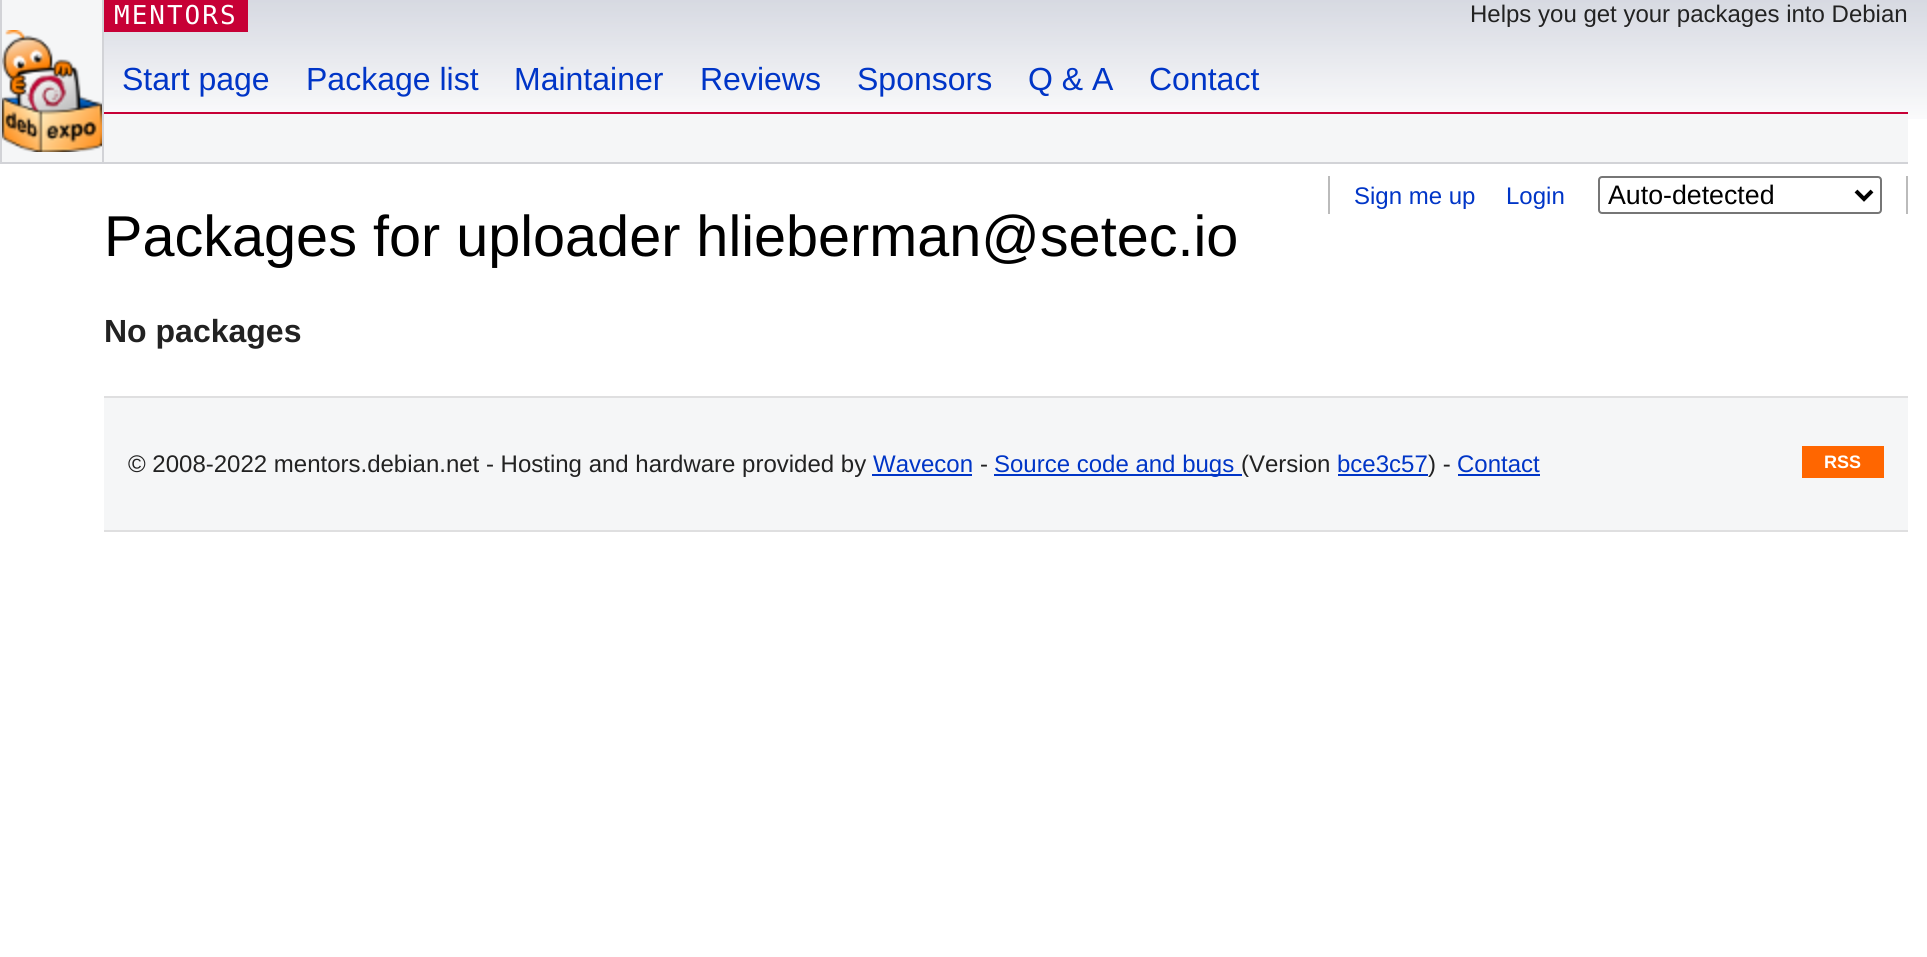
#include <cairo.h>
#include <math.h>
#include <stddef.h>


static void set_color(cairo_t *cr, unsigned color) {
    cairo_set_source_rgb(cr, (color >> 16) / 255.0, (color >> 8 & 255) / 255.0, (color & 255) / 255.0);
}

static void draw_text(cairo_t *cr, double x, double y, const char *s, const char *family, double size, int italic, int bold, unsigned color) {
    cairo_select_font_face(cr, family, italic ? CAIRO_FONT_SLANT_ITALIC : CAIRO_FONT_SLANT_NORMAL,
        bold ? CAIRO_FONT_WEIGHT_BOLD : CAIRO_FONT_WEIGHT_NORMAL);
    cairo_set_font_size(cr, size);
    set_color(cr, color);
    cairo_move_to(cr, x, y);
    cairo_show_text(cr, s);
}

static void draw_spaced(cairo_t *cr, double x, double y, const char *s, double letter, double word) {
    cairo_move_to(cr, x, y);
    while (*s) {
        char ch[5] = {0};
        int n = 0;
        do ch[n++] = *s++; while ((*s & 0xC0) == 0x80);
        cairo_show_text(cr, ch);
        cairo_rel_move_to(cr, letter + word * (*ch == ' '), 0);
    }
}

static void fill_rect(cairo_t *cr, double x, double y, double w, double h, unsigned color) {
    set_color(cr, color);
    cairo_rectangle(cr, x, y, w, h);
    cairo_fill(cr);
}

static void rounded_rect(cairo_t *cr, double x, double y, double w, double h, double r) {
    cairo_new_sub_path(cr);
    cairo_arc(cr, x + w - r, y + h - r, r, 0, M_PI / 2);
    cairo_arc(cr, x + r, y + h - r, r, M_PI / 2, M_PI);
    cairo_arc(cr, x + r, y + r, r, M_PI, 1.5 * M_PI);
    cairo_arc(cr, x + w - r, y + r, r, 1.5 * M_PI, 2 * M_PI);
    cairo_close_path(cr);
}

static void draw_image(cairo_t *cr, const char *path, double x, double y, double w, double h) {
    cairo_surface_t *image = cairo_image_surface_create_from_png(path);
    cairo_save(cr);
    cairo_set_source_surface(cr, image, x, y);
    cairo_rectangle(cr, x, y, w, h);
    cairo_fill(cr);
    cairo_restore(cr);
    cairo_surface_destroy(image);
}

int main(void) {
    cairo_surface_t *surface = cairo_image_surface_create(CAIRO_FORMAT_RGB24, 1927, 957);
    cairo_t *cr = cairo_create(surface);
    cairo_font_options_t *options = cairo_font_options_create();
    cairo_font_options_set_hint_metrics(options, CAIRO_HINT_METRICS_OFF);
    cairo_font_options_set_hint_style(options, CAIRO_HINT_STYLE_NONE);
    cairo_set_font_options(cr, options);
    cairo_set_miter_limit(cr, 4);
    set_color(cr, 0xFFFFFF);
    cairo_paint(cr);
    draw_image(cr, "assets/img1.png", 104, 0, 1823, 119);
    fill_rect(cr, 2, 0, 100, 162, 0xF5F6F7);
    fill_rect(cr, 102, 0, 2, 164, 0xD2D3D7);
    fill_rect(cr, 0, 162, 104, 2, 0xD2D3D7);
    fill_rect(cr, 0, 0, 2, 164, 0xD2D3D7);
    draw_image(cr, "assets/img2.png", 2, 30, 100, 122);
    fill_rect(cr, 104, 0, 144, 32, 0xC70036);
    cairo_select_font_face(cr, "DejaVu Sans Mono", CAIRO_FONT_SLANT_NORMAL, CAIRO_FONT_WEIGHT_NORMAL);
    cairo_set_font_size(cr, 26);
    set_color(cr, 0xFFFFFF);
    draw_spaced(cr, 114, 24, "MENTORS", 2, 0);
    draw_text(cr, 1470, 22, "Helps you get your packages into Debian", "Liberation Sans", 24, 0, 0, 0x222222);
    fill_rect(cr, 104, 112, 1804, 2, 0xC70036);
    draw_text(cr, 122, 90, "Start page", "Liberation Sans", 32, 0, 0, 0x0035C7);
    draw_text(cr, 306, 90, "Package list", "Liberation Sans", 32, 0, 0, 0x0035C7);
    draw_text(cr, 514, 90, "Maintainer", "Liberation Sans", 32, 0, 0, 0x0035C7);
    draw_text(cr, 700, 90, "Reviews", "Liberation Sans", 32, 0, 0, 0x0035C7);
    draw_text(cr, 857, 90, "Sponsors", "Liberation Sans", 32, 0, 0, 0x0035C7);
    draw_text(cr, 1028, 90, "Q & A", "Liberation Sans", 32, 0, 0, 0x0035C7);
    draw_text(cr, 1149, 90, "Contact", "Liberation Sans", 32, 0, 0, 0x0035C7);
    fill_rect(cr, 104, 114, 1804, 48, 0xF5F6F7);
    fill_rect(cr, 104, 162, 1804, 2, 0xD2D3D7);
    fill_rect(cr, 1906, 176, 2, 38, 0xBBBBBB);
    fill_rect(cr, 1328, 176, 2, 38, 0xBBBBBB);
    draw_text(cr, 1354, 204, "Sign me up", "Liberation Sans", 24, 0, 0, 0x0035C7);
    draw_text(cr, 1506, 204, "Login", "Liberation Sans", 24, 0, 0, 0x0035C7);
    rounded_rect(cr, 1599, 177, 282, 36, 3);
    set_color(cr, 0x767676);
    cairo_stroke(cr);
    cairo_new_path(cr);
    cairo_move_to(cr, 1856, 191);
    cairo_line_to(cr, 1864, 199);
    cairo_line_to(cr, 1872, 191);
    set_color(cr, 0x000000);
    cairo_set_line_width(cr, 4);
    cairo_stroke(cr);
    draw_text(cr, 1608, 204, "Auto-detected", "Liberation Sans", 26.75, 0, 0, 0x000000);
    draw_text(cr, 104, 256, "Packages for uploader hlieberman@setec.io", "Liberation Sans", 57.6, 0, 0, 0x000000);
    draw_text(cr, 104, 342, "No packages", "Liberation Sans", 32, 0, 1, 0x222222);
    fill_rect(cr, 104, 398, 1804, 132, 0xF5F6F7);
    fill_rect(cr, 104, 396, 1804, 2, 0xDFDFE0);
    fill_rect(cr, 104, 530, 1804, 2, 0xDFDFE0);
    draw_text(cr, 128, 472, "© 2008-2022 mentors.debian.net - Hosting and hardware provided by", "Liberation Sans", 24, 0, 0, 0x222222);
    draw_text(cr, 873, 472, "Wavecon", "Liberation Sans", 24, 0, 0, 0x0035C7);
    fill_rect(cr, 872, 474, 100, 2, 0x0035C7);
    draw_text(cr, 980, 472, "-", "Liberation Sans", 24, 0, 0, 0x222222);
    fill_rect(cr, 994, 474, 248, 2, 0x0035C7);
    draw_text(cr, 994, 472, "Source code and bugs", "Liberation Sans", 24, 0, 0, 0x0035C7);
    draw_text(cr, 1241, 472, "(Version", "Liberation Sans", 24, 0, 0, 0x222222);
    draw_text(cr, 1337, 472, "bce3c57", "Liberation Sans", 24, 0, 0, 0x0035C7);
    fill_rect(cr, 1338, 474, 90, 2, 0x0035C7);
    draw_text(cr, 1428, 472, ") -", "Liberation Sans", 24, 0, 0, 0x222222);
    draw_text(cr, 1457, 472, "Contact", "Liberation Sans", 24, 0, 0, 0x0035C7);
    fill_rect(cr, 1458, 474, 82, 2, 0x0035C7);
    fill_rect(cr, 1802, 446, 82, 32, 0xFF6600);
    draw_text(cr, 1824, 468, "RSS", "Liberation Sans", 18, 0, 1, 0xFFFFFF);
    cairo_surface_write_to_png(surface, "output.png");
    cairo_font_options_destroy(options);
    cairo_destroy(cr);
    cairo_surface_destroy(surface);
    return 0;
}
